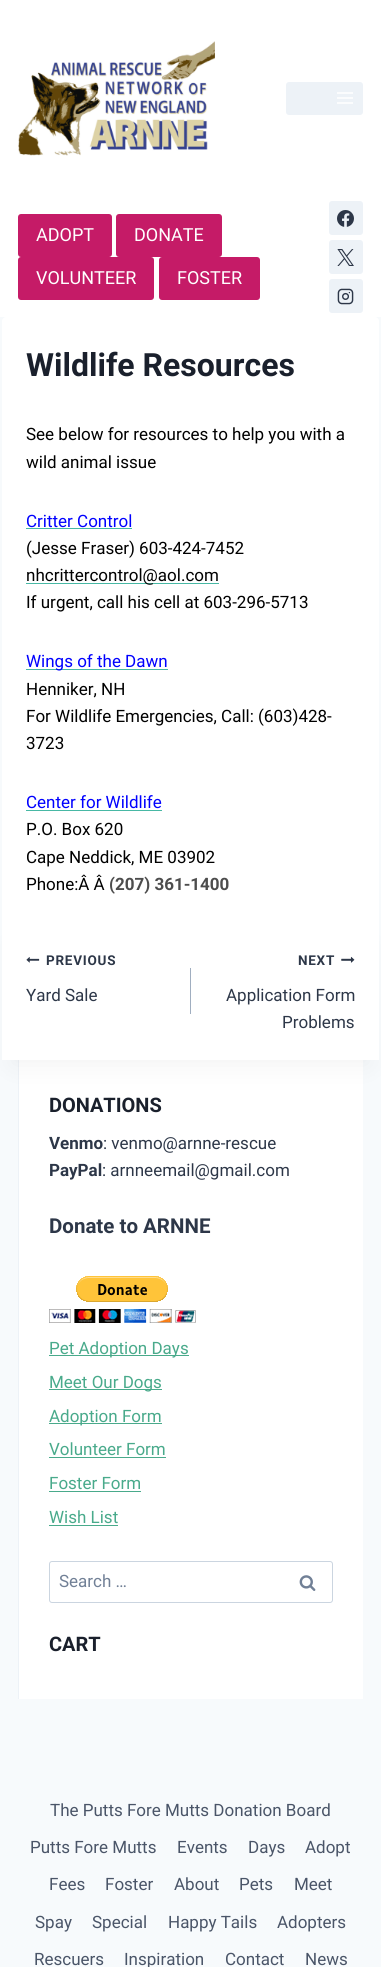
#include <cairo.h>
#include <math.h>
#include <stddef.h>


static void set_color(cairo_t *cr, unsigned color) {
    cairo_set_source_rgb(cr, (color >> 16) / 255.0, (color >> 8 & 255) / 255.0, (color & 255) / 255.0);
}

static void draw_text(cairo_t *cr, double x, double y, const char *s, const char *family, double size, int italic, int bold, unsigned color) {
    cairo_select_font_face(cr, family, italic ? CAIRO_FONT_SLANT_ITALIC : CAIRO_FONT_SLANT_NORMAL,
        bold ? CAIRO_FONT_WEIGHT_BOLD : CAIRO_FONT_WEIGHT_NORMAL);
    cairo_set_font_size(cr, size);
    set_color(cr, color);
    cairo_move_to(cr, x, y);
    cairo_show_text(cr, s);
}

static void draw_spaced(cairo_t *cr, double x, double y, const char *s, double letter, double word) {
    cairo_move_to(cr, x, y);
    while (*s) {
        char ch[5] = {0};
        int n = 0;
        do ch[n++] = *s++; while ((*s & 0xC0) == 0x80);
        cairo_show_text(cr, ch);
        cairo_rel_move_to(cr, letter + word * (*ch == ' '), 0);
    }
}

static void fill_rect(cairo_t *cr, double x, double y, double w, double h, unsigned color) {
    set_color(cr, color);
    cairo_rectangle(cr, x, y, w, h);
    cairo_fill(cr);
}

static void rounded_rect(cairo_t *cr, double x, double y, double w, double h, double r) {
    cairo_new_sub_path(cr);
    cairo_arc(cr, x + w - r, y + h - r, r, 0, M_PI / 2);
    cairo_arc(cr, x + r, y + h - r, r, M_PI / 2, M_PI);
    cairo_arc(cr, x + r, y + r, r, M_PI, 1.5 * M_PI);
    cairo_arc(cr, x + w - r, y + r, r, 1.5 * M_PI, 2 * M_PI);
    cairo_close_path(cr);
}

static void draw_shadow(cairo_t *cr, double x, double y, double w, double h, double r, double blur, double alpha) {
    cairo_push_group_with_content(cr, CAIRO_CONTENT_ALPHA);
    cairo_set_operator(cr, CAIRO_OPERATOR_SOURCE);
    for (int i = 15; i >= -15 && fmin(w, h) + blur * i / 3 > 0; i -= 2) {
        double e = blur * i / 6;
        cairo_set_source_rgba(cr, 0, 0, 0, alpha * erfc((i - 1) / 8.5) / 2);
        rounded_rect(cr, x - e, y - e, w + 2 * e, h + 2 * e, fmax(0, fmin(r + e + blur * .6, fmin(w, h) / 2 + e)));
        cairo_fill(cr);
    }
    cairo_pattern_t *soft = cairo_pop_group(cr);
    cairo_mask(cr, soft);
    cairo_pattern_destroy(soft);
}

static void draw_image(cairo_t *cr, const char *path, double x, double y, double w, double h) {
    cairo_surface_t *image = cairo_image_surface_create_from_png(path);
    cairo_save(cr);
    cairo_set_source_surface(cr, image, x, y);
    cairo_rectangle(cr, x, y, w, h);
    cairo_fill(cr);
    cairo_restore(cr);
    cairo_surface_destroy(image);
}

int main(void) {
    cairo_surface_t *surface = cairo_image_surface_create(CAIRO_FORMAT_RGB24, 381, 1967);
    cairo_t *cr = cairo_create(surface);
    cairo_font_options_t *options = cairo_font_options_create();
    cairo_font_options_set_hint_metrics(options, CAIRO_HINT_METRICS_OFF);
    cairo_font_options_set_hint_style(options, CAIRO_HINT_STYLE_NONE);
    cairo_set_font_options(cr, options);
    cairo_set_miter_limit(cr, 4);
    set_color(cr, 0xF7FAFC);
    cairo_paint(cr);
    fill_rect(cr, 0, 0, 381, 317, 0xFFFFFF);
    draw_image(cr, "assets/img1.png", 18, 41, 197, 115);
    set_color(cr, 0xEDF2F7);
    rounded_rect(cr, 286, 82, 77, 33, 3);
    cairo_fill(cr);
    draw_image(cr, "assets/img2.png", 337, 92, 16, 12);
    set_color(cr, 0xC51B67);
    rounded_rect(cr, 18, 214, 94, 43, 3);
    cairo_fill(cr);
    draw_text(cr, 36, 241, "ADOPT", "Roboto", 18, 0, 0, 0xFFFFFF);
    set_color(cr, 0xC51B67);
    rounded_rect(cr, 116, 214, 106, 43, 3);
    cairo_fill(cr);
    draw_text(cr, 134, 241, "DONATE", "Roboto", 18, 0, 0, 0xFFFFFF);
    set_color(cr, 0xC51B67);
    rounded_rect(cr, 18, 257, 136, 43, 3);
    cairo_fill(cr);
    draw_text(cr, 36, 284, "VOLUNTEER", "Roboto", 18, 0, 0, 0xFFFFFF);
    set_color(cr, 0xC51B67);
    rounded_rect(cr, 159, 257, 101, 43, 3);
    cairo_fill(cr);
    draw_text(cr, 177, 284, "FOSTER", "Roboto", 18, 0, 0, 0xFFFFFF);
    set_color(cr, 0xEDF2F7);
    rounded_rect(cr, 329, 201, 34, 34, 3);
    cairo_fill(cr);
    draw_image(cr, "assets/img3.png", 337, 210, 17, 17);
    rounded_rect(cr, 329, 240, 34, 34, 3);
    cairo_fill(cr);
    draw_image(cr, "assets/img4.png", 337, 249, 17, 17);
    rounded_rect(cr, 329, 279, 34, 34, 3);
    cairo_fill(cr);
    draw_image(cr, "assets/img5.png", 337, 288, 17, 17);
    set_color(cr, 0xFFFFFF);
    cairo_new_path(cr);
    cairo_move_to(cr, 6, 317);
    cairo_line_to(cr, 375, 317);
    cairo_curve_to(cr, 377, 317, 379, 319, 379, 321);
    cairo_line_to(cr, 379, 922);
    cairo_line_to(cr, 2, 922);
    cairo_line_to(cr, 2, 321);
    cairo_curve_to(cr, 2, 319, 4, 317, 6, 317);
    cairo_close_path(cr);
    cairo_fill(cr);
    draw_text(cr, 26, 376, "Wildlife Resources", "Roboto", 32, 0, 1, 0x1A202C);
    draw_text(cr, 26, 440, "See below for resources to help you with a", "Roboto", 17, 0, 0, 0x000000);
    draw_text(cr, 26, 468, "wild animal issue", "Roboto", 17, 0, 0, 0x000000);
    draw_text(cr, 26, 527, "Critter Control", "Roboto", 17, 0, 0, 0x0000FF);
    fill_rect(cr, 26, 528, 106, 1, 0x48B8A4);
    draw_text(cr, 26, 554, "(Jesse Fraser) 603-424-7452", "Roboto", 17, 0, 0, 0x000000);
    fill_rect(cr, 26, 583, 193, 1, 0x48B8A4);
    draw_text(cr, 26, 581, "nhcrittercontrol@aol.com", "Roboto", 17, 0, 0, 0x000000);
    draw_text(cr, 26, 608, "If urgent, call his cell at 603-296-5713", "Roboto", 17, 0, 0, 0x000000);
    fill_rect(cr, 26, 669, 142, 1, 0x48B8A4);
    draw_text(cr, 26, 667, "Wings of the Dawn", "Roboto", 17, 0, 0, 0x0000FF);
    draw_text(cr, 26, 695, "Henniker, NH", "Roboto", 17, 0, 0, 0x000000);
    draw_text(cr, 26, 722, "For Wildlife Emergencies, Call: (603)428-", "Roboto", 17, 0, 0, 0x000000);
    draw_text(cr, 26, 749, "3723", "Roboto", 17, 0, 0, 0x000000);
    draw_text(cr, 26, 808, "Center for Wildlife", "Roboto", 17, 0, 0, 0x0000FF);
    fill_rect(cr, 26, 810, 136, 1, 0x48B8A4);
    draw_text(cr, 26, 835, "P.O. Box 620", "Roboto", 17, 0, 0, 0x000000);
    draw_text(cr, 26, 863, "Cape Neddick, ME 03902", "Roboto", 17, 0, 0, 0x000000);
    draw_text(cr, 26, 890, "Phone:Â Â", "Roboto", 17, 0, 0, 0x000000);
    draw_text(cr, 109, 890, "(207) 361-1400", "Roboto", 17, 0, 1, 0x4D4D4D);
    fill_rect(cr, 19, 1060, 344, 639, 0xFFFFFF);
    fill_rect(cr, 18, 1060, 1, 639, 0xEDF2F7);
    set_color(cr, 0x000000);
    draw_shadow(cr, 12, 947, 357, 118, 0, 12.5, 0.05);
    fill_rect(cr, 2, 922, 377, 138, 0xFFFFFF);
    draw_image(cr, "assets/img6.png", 26, 957, 14, 6);
    cairo_set_font_size(cr, 13.5);
    set_color(cr, 0x2D3748);
    draw_spaced(cr, 46, 965, "PREVIOUS", 0.75, 0);
    draw_text(cr, 26, 1001, "Yard Sale", "Roboto", 17, 0, 0, 0x2D3748);
    fill_rect(cr, 190, 968, 1, 46, 0xA0AEC0);
    cairo_select_font_face(cr, "Roboto", CAIRO_FONT_SLANT_NORMAL, CAIRO_FONT_WEIGHT_BOLD);
    cairo_set_font_size(cr, 13.5);
    set_color(cr, 0x2D3748);
    draw_spaced(cr, 298, 965, "NEXT", 0.75, 0);
    draw_image(cr, "assets/img7.png", 341, 956, 14, 7);
    draw_text(cr, 226, 1001, "Application Form", "Roboto", 17, 0, 0, 0x2D3748);
    draw_text(cr, 282, 1028, "Problems", "Roboto", 17, 0, 0, 0x2D3748);
    draw_text(cr, 49, 1112, "DONATIONS", "Roboto", 20, 0, 1, 0x1A202C);
    draw_text(cr, 49, 1149, "Venmo", "Roboto", 17, 0, 1, 0x2D3748);
    draw_text(cr, 103, 1149, ": venmo@arnne-rescue", "Roboto", 17, 0, 0, 0x2D3748);
    draw_text(cr, 49, 1176, "PayPal", "Roboto", 17, 0, 1, 0x2D3748);
    draw_text(cr, 102, 1176, ": arnneemail@gmail.com", "Roboto", 17, 0, 0, 0x2D3748);
    draw_text(cr, 49, 1233, "Donate to ARNNE", "Roboto", 20.5, 0, 1, 0x2D3748);
    draw_image(cr, "assets/img8.png", 49, 1276, 147, 47);
    fill_rect(cr, 49, 1355, 140, 1, 0x49AA8B);
    draw_text(cr, 49, 1354, "Pet Adoption Days", "Roboto", 17, 0, 0, 0x49AA8B);
    fill_rect(cr, 49, 1389, 113, 1, 0x49AA8B);
    draw_text(cr, 49, 1388, "Meet Our Dogs", "Roboto", 17, 0, 0, 0x49AA8B);
    fill_rect(cr, 49, 1423, 113, 1, 0x49AA8B);
    draw_text(cr, 49, 1422, "Adoption Form", "Roboto", 17, 0, 0, 0x49AA8B);
    draw_text(cr, 49, 1455, "Volunteer Form", "Roboto", 17, 0, 0, 0x49AA8B);
    fill_rect(cr, 49, 1457, 117, 1, 0x49AA8B);
    draw_text(cr, 49, 1489, "Foster Form", "Roboto", 17, 0, 0, 0x49AA8B);
    fill_rect(cr, 49, 1491, 92, 1, 0x49AA8B);
    draw_text(cr, 49, 1523, "Wish List", "Roboto", 17, 0, 0, 0x49AA8B);
    fill_rect(cr, 49, 1525, 69, 1, 0x49AA8B);
    rounded_rect(cr, 49.5, 1561.5, 283, 41, 2.5);
    set_color(cr, 0xCBD5E0);
    cairo_set_line_width(cr, 1);
    cairo_stroke(cr);
    draw_text(cr, 59, 1587, "Search …", "Roboto", 17, 0, 0, 0x718096);
    draw_image(cr, "assets/img9.png", 299, 1575, 17, 16);
    draw_text(cr, 49, 1651, "CART", "Roboto", 20, 0, 1, 0x1A202C);
    draw_text(cr, 50, 1816, "The Putts Fore Mutts Donation Board", "Roboto", 17, 0, 0, 0x4A5568);
    draw_text(cr, 30, 1853, "Putts Fore Mutts", "Roboto", 17, 0, 0, 0x4A5568);
    draw_text(cr, 177, 1853, "Events", "Roboto", 17, 0, 0, 0x4A5568);
    draw_text(cr, 248, 1853, "Days", "Roboto", 17, 0, 0, 0x4A5568);
    draw_text(cr, 305, 1853, "Adopt", "Roboto", 17, 0, 0, 0x4A5568);
    draw_text(cr, 49, 1890, "Fees", "Roboto", 17, 0, 0, 0x4A5568);
    draw_text(cr, 105, 1890, "Foster", "Roboto", 17, 0, 0, 0x4A5568);
    draw_text(cr, 174, 1890, "About", "Roboto", 17, 0, 0, 0x4A5568);
    draw_text(cr, 239, 1890, "Pets", "Roboto", 17, 0, 0, 0x4A5568);
    draw_text(cr, 294, 1890, "Meet", "Roboto", 17, 0, 0, 0x4A5568);
    draw_text(cr, 35, 1928, "Spay", "Roboto", 17, 0, 0, 0x4A5568);
    draw_text(cr, 92, 1928, "Special", "Roboto", 17, 0, 0, 0x4A5568);
    draw_text(cr, 168, 1928, "Happy Tails", "Roboto", 17, 0, 0, 0x4A5568);
    draw_text(cr, 277, 1928, "Adopters", "Roboto", 17, 0, 0, 0x4A5568);
    draw_text(cr, 34, 1965, "Rescuers", "Roboto", 17, 0, 0, 0x4A5568);
    draw_text(cr, 124, 1965, "Inspiration", "Roboto", 17, 0, 0, 0x4A5568);
    draw_text(cr, 225, 1965, "Contact", "Roboto", 17, 0, 0, 0x4A5568);
    draw_text(cr, 305, 1965, "News", "Roboto", 17, 0, 0, 0x4A5568);
    cairo_surface_write_to_png(surface, "output.png");
    cairo_font_options_destroy(options);
    cairo_destroy(cr);
    cairo_surface_destroy(surface);
    return 0;
}
